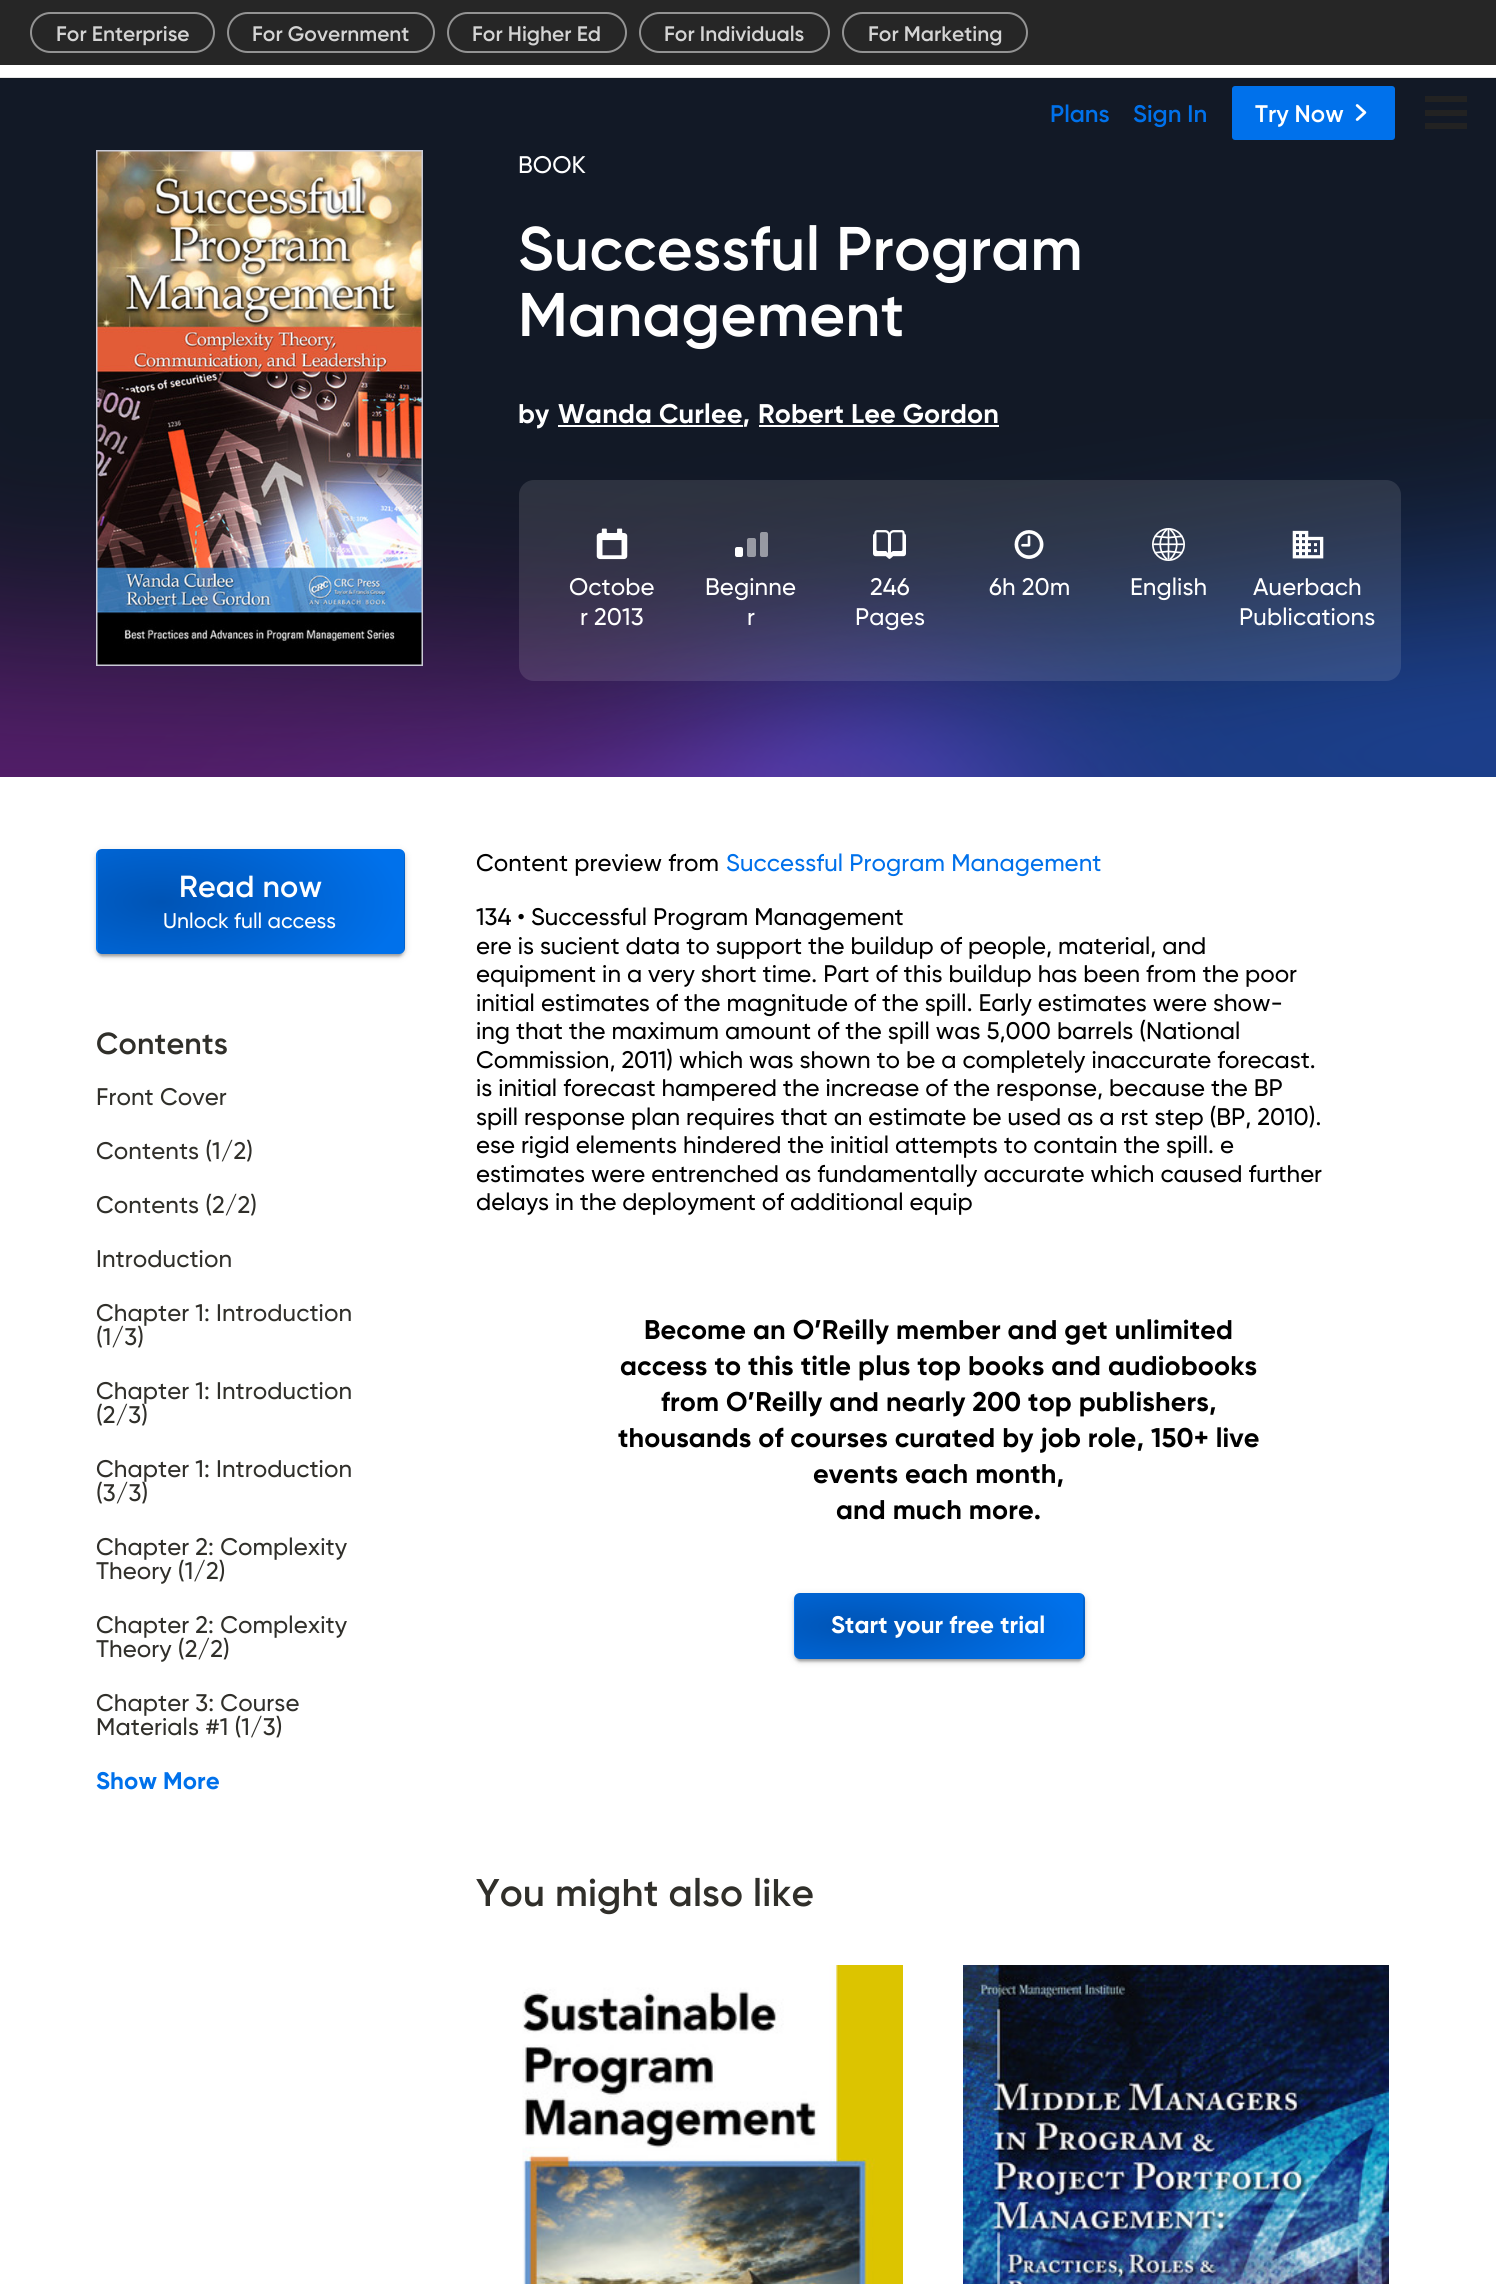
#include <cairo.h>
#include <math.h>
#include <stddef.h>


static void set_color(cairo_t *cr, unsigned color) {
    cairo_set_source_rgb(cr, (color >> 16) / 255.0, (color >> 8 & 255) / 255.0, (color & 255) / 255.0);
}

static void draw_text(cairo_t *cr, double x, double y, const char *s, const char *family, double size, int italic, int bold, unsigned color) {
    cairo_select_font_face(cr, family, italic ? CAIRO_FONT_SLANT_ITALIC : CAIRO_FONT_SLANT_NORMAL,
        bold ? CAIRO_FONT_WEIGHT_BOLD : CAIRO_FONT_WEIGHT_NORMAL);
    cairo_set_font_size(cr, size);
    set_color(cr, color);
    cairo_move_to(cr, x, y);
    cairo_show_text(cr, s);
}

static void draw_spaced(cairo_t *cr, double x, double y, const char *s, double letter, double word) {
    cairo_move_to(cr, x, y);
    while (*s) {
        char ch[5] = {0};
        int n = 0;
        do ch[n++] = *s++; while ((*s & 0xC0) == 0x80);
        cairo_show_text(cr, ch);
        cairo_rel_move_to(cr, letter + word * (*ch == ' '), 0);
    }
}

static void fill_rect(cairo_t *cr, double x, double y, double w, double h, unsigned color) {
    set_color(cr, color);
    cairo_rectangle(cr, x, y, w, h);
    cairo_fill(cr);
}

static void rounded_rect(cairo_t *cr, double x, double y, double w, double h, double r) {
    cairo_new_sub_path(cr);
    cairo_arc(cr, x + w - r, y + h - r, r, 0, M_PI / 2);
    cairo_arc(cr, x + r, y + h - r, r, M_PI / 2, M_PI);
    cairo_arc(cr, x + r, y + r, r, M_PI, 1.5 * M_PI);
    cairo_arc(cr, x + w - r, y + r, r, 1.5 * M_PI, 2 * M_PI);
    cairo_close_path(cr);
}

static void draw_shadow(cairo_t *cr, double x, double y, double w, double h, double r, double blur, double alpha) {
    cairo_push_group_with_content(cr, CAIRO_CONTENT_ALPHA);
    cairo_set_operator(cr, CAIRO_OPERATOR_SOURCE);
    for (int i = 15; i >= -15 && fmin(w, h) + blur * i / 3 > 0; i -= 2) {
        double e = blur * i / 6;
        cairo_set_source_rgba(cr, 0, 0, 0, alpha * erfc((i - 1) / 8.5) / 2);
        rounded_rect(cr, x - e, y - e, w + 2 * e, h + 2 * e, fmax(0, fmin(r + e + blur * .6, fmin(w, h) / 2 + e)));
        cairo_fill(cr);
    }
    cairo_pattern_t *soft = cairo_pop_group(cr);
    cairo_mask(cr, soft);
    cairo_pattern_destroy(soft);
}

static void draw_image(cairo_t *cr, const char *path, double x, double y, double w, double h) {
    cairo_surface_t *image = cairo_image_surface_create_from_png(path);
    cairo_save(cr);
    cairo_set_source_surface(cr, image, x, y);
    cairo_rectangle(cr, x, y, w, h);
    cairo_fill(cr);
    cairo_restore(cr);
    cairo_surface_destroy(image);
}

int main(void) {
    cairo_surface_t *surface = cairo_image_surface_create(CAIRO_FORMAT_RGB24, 1496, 2284);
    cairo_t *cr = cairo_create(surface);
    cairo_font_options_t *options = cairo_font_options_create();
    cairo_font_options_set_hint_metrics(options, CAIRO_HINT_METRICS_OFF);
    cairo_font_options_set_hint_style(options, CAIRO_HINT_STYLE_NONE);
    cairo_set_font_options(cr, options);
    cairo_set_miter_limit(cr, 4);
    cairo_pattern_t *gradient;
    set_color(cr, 0xFFFFFF);
    cairo_paint(cr);
    fill_rect(cr, 0, 77, 1496, 1, 0xE6E6E6);
    fill_rect(cr, 0, 0, 1496, 65, 0x262626);
    rounded_rect(cr, 31, 13, 183, 39, 19.5);
    set_color(cr, 0x939393);
    cairo_stroke(cr);
    draw_text(cr, 56, 41, "For Enterprise", "Gilroy SemiBold", 21, 0, 0, 0xD4D4D4);
    rounded_rect(cr, 228, 13, 206, 39, 19.5);
    set_color(cr, 0x939393);
    cairo_stroke(cr);
    draw_text(cr, 252, 41, "For Government", "Gilroy SemiBold", 21, 0, 0, 0xD4D4D4);
    rounded_rect(cr, 448, 13, 178, 39, 19.5);
    set_color(cr, 0x939393);
    cairo_stroke(cr);
    draw_text(cr, 472, 41, "For Higher Ed", "Gilroy SemiBold", 21, 0, 0, 0xD4D4D4);
    rounded_rect(cr, 640, 13, 189, 39, 19.5);
    set_color(cr, 0x939393);
    cairo_stroke(cr);
    draw_text(cr, 664, 41, "For Individuals", "Gilroy SemiBold", 21, 0, 0, 0xD4D4D4);
    rounded_rect(cr, 843, 13, 184, 39, 19.5);
    set_color(cr, 0x939393);
    cairo_stroke(cr);
    draw_text(cr, 868, 41, "For Marketing", "Gilroy SemiBold", 21, 0, 0, 0xD4D4D4);
    fill_rect(cr, 0, 79, 1496, 698, 0x121926);
    draw_text(cr, 1050, 122, "Plans", "Gilroy SemiBold", 24, 0, 0, 0x0071EB);
    draw_text(cr, 1133, 122, "Sign In", "Gilroy SemiBold", 24, 0, 0, 0x0071EB);
    rounded_rect(cr, 1232, 86, 163, 54, 3);
    cairo_fill(cr);
    draw_text(cr, 1255, 122, "Try Now", "Gilroy SemiBold", 24, 0, 0, 0xFFFFFF);
    draw_image(cr, "assets/img1.png", 1355, 104, 12, 17);
    fill_rect(cr, 1425, 110, 42, 6, 0x222222);
    fill_rect(cr, 1425, 96, 42, 6, 0x222222);
    fill_rect(cr, 1425, 123, 42, 6, 0x222222);
    fill_rect(cr, 0, 78, 1496, 1, 0x101722);
    draw_image(cr, "assets/img2.png", 0, 419, 1496, 358);
    fill_rect(cr, 96, 150, 327, 516, 0xCACBD6);
    draw_image(cr, "assets/img3.png", 97, 151, 325, 514);
    cairo_select_font_face(cr, "Gilroy Medium", CAIRO_FONT_SLANT_NORMAL, CAIRO_FONT_WEIGHT_NORMAL);
    set_color(cr, 0xFFFFFF);
    draw_spaced(cr, 518, 173, "BOOK", 0.1, 0);
    cairo_select_font_face(cr, "Gilroy SemiBold", CAIRO_FONT_SLANT_NORMAL, CAIRO_FONT_WEIGHT_NORMAL);
    cairo_set_font_size(cr, 61.5);
    draw_spaced(cr, 518, 270, "Successful Program", 0.3, 0);
    draw_spaced(cr, 518, 336, "Management", 0.3, 0);
    cairo_select_font_face(cr, "Gilroy", CAIRO_FONT_SLANT_NORMAL, CAIRO_FONT_WEIGHT_BOLD);
    cairo_set_font_size(cr, 27);
    draw_spaced(cr, 518, 423, "by", 0.15, 0);
    fill_rect(cr, 558, 425, 185, 2, 0xFFFFFF);
    draw_spaced(cr, 558, 423, "Wanda Curlee,", 0.15, 0);
    draw_spaced(cr, 758, 423, "Robert Lee Gordon", 0.15, 0);
    fill_rect(cr, 759, 425, 240, 2, 0xFFFFFF);
    cairo_set_source_rgba(cr, 1, 1, 1, 0.11);
    rounded_rect(cr, 519, 480, 882, 201, 15);
    cairo_fill(cr);
    draw_image(cr, "assets/img4.png", 596, 528, 32, 32);
    cairo_select_font_face(cr, "Gilroy Medium", CAIRO_FONT_SLANT_NORMAL, CAIRO_FONT_WEIGHT_NORMAL);
    cairo_set_font_size(cr, 24);
    set_color(cr, 0xFFFFFF);
    draw_spaced(cr, 569, 595, "Octobe", 0.1, 0);
    draw_spaced(cr, 580, 625, "r 2013", 0.1, 0);
    rounded_rect(cr, 735, 547, 8, 10, 2);
    cairo_fill(cr);
    cairo_set_source_rgba(cr, 1, 1, 1, 0.5);
    rounded_rect(cr, 747, 538, 9, 19, 2);
    cairo_fill(cr);
    rounded_rect(cr, 760, 532, 8, 25, 2);
    cairo_fill(cr);
    set_color(cr, 0xFFFFFF);
    draw_spaced(cr, 705, 595, "Beginne", 0.1, 0);
    draw_spaced(cr, 747, 625, "r", 0.1, 0);
    draw_image(cr, "assets/img5.png", 873, 530, 33, 29);
    draw_spaced(cr, 870, 595, "246", 0.1, 0);
    draw_spaced(cr, 855, 625, "Pages", 0.1, 0);
    draw_image(cr, "assets/img6.png", 1014, 530, 30, 29);
    draw_spaced(cr, 989, 595, "6h 20m", 0.1, 0);
    draw_image(cr, "assets/img7.png", 1152, 528, 33, 33);
    draw_spaced(cr, 1130, 595, "English", 0.1, 0);
    draw_image(cr, "assets/img8.png", 1292, 530, 32, 29);
    draw_spaced(cr, 1253, 595, "Auerbach", 0.1, 0);
    draw_spaced(cr, 1239, 625, "Publications", 0.1, 0);
    set_color(cr, 0x000000);
    draw_shadow(cr, 96, 851, 309, 105, 6, 4, 0.12);
    draw_shadow(cr, 96, 852, 309, 105, 6, 1.5, 0.14);
    draw_shadow(cr, 99, 857, 303, 99, 3, 1, 0.2);
    cairo_save(cr);
    rounded_rect(cr, 96, 849, 309, 105, 6);
    cairo_clip(cr);
    gradient = cairo_pattern_create_radial(0, 0, 0, 0, 0, 1);
    cairo_pattern_set_matrix(gradient, &(cairo_matrix_t){1.0 / 243, 0, 0, 1.0 / 107, -1.0 * -145 / 243, -1.0 * 800 / 107});
    cairo_pattern_add_color_stop_rgba(gradient, 0, 0, 0.329, 0.71, 1);
    cairo_pattern_add_color_stop_rgba(gradient, 1, 0, 0.443, 0.922, 1);
    cairo_set_source(cr, gradient);
    cairo_pattern_destroy(gradient);
    cairo_rectangle(cr, 96, 850, 2, 1);
    cairo_fill(cr);
    gradient = cairo_pattern_create_radial(0, 0, 0, 0, 0, 1);
    cairo_pattern_set_matrix(gradient, &(cairo_matrix_t){1.0 / 243, 0, 0, 1.0 / 107, -1.0 * 161 / 243, -1.0 * 800 / 107});
    cairo_pattern_add_color_stop_rgba(gradient, 0, 0, 0.329, 0.71, 1);
    cairo_pattern_add_color_stop_rgba(gradient, 1, 0, 0.443, 0.922, 1);
    cairo_set_source(cr, gradient);
    cairo_pattern_destroy(gradient);
    cairo_rectangle(cr, 98, 849, 306, 2);
    cairo_fill(cr);
    gradient = cairo_pattern_create_radial(0, 0, 0, 0, 0, 1);
    cairo_pattern_set_matrix(gradient, &(cairo_matrix_t){1.0 / 243, 0, 0, 1.0 / 107, -1.0 * -145 / 243, -1.0 * 902 / 107});
    cairo_pattern_add_color_stop_rgba(gradient, 0, 0, 0.329, 0.71, 1);
    cairo_pattern_add_color_stop_rgba(gradient, 1, 0, 0.443, 0.922, 1);
    cairo_set_source(cr, gradient);
    cairo_pattern_destroy(gradient);
    cairo_rectangle(cr, 96, 851, 2, 102);
    cairo_fill(cr);
    gradient = cairo_pattern_create_radial(0, 0, 0, 0, 0, 1);
    cairo_pattern_set_matrix(gradient, &(cairo_matrix_t){1.0 / 243, 0, 0, 1.0 / 107, -1.0 * 161 / 243, -1.0 * 902 / 107});
    cairo_pattern_add_color_stop_rgba(gradient, 0, 0, 0.329, 0.71, 1);
    cairo_pattern_add_color_stop_rgba(gradient, 1, 0, 0.443, 0.922, 1);
    cairo_set_source(cr, gradient);
    cairo_pattern_destroy(gradient);
    cairo_rectangle(cr, 98, 851, 306, 102);
    cairo_fill(cr);
    gradient = cairo_pattern_create_radial(0, 0, 0, 0, 0, 1);
    cairo_pattern_set_matrix(gradient, &(cairo_matrix_t){1.0 / 243, 0, 0, 1.0 / 107, -1.0 * 467 / 243, -1.0 * 902 / 107});
    cairo_pattern_add_color_stop_rgba(gradient, 0, 0, 0.329, 0.71, 1);
    cairo_pattern_add_color_stop_rgba(gradient, 1, 0, 0.443, 0.922, 1);
    cairo_set_source(cr, gradient);
    cairo_pattern_destroy(gradient);
    cairo_rectangle(cr, 404, 851, 1, 102);
    cairo_fill(cr);
    gradient = cairo_pattern_create_radial(0, 0, 0, 0, 0, 1);
    cairo_pattern_set_matrix(gradient, &(cairo_matrix_t){1.0 / 243, 0, 0, 1.0 / 107, -1.0 * 161 / 243, -1.0 * 1004 / 107});
    cairo_pattern_add_color_stop_rgba(gradient, 0, 0, 0.329, 0.71, 1);
    cairo_pattern_add_color_stop_rgba(gradient, 1, 0, 0.443, 0.922, 1);
    cairo_set_source(cr, gradient);
    cairo_pattern_destroy(gradient);
    cairo_rectangle(cr, 98, 953, 306, 1);
    cairo_fill(cr);
    cairo_restore(cr);
    cairo_select_font_face(cr, "Gilroy SemiBold", CAIRO_FONT_SLANT_NORMAL, CAIRO_FONT_WEIGHT_NORMAL);
    cairo_set_font_size(cr, 30.5);
    set_color(cr, 0xFFFFFF);
    draw_spaced(cr, 179, 897, "Read now", 0.2, 0);
    draw_text(cr, 163, 928, "Unlock full access", "Gilroy Medium", 21.25, 0, 0, 0xFFFFFF);
    cairo_select_font_face(cr, "Gilroy SemiBold", CAIRO_FONT_SLANT_NORMAL, CAIRO_FONT_WEIGHT_NORMAL);
    cairo_set_font_size(cr, 30.5);
    set_color(cr, 0x302F2A);
    draw_spaced(cr, 96, 1054, "Contents", 0.2, 0);
    cairo_select_font_face(cr, "Gilroy Medium", CAIRO_FONT_SLANT_NORMAL, CAIRO_FONT_WEIGHT_NORMAL);
    cairo_set_font_size(cr, 24);
    draw_spaced(cr, 96, 1105, "Front Cover", 0.1, 0);
    draw_spaced(cr, 96, 1159, "Contents (1/2)", 0.1, 0);
    draw_spaced(cr, 96, 1213, "Contents (2/2)", 0.1, 0);
    draw_spaced(cr, 96, 1267, "Introduction", 0.1, 0);
    draw_spaced(cr, 96, 1321, "Chapter 1: Introduction", 0.1, 0);
    draw_spaced(cr, 96, 1345, "(1/3)", 0.1, 0);
    draw_spaced(cr, 96, 1399, "Chapter 1: Introduction", 0.1, 0);
    draw_spaced(cr, 96, 1423, "(2/3)", 0.1, 0);
    draw_spaced(cr, 96, 1477, "Chapter 1: Introduction", 0.1, 0);
    draw_spaced(cr, 96, 1501, "(3/3)", 0.1, 0);
    draw_spaced(cr, 96, 1555, "Chapter 2: Complexity", 0.1, 0);
    draw_spaced(cr, 96, 1579, "Theory (1/2)", 0.1, 0);
    draw_spaced(cr, 96, 1633, "Chapter 2: Complexity", 0.1, 0);
    draw_spaced(cr, 96, 1657, "Theory (2/2)", 0.1, 0);
    draw_spaced(cr, 96, 1711, "Chapter 3: Course", 0.1, 0);
    draw_spaced(cr, 96, 1735, "Materials #1 (1/3)", 0.1, 0);
    cairo_select_font_face(cr, "Gilroy", CAIRO_FONT_SLANT_NORMAL, CAIRO_FONT_WEIGHT_BOLD);
    set_color(cr, 0x0071EB);
    draw_spaced(cr, 96, 1789, "Show More", 0.1, 0);
    cairo_select_font_face(cr, "Gilroy Medium", CAIRO_FONT_SLANT_NORMAL, CAIRO_FONT_WEIGHT_NORMAL);
    set_color(cr, 0x000000);
    draw_spaced(cr, 476, 871, "Content preview from", 0.1, 0);
    set_color(cr, 0x0071EB);
    draw_spaced(cr, 726, 871, "Successful Program Management", 0.1, 0);
    draw_text(cr, 476, 925, "134 • Successful Program Management", "Gilroy Medium", 24, 0, 0, 0x000000);
    draw_text(cr, 476, 954, "ere is sucient data to support the buildup of people, material, and", "Gilroy Medium", 24, 0, 0, 0x000000);
    draw_text(cr, 476, 982, "equipment in a very short time. Part of this buildup has been from the poor", "Gilroy Medium", 24, 0, 0, 0x000000);
    draw_text(cr, 476, 1011, "initial estimates of the magnitude of the spill. Early estimates were show-", "Gilroy Medium", 24, 0, 0, 0x000000);
    draw_text(cr, 476, 1039, "ing that the maximum amount of the spill was 5,000 barrels (National", "Gilroy Medium", 24, 0, 0, 0x000000);
    draw_text(cr, 476, 1068, "Commission, 2011) which was shown to be a completely inaccurate forecast.", "Gilroy Medium", 24, 0, 0, 0x000000);
    draw_text(cr, 476, 1096, "is initial forecast hampered the increase of the response, because the BP", "Gilroy Medium", 24, 0, 0, 0x000000);
    draw_text(cr, 476, 1125, "spill response plan requires that an estimate be used as a rst step (BP, 2010).", "Gilroy Medium", 24, 0, 0, 0x000000);
    draw_text(cr, 476, 1153, "ese rigid elements hindered the initial attempts to contain the spill. e", "Gilroy Medium", 24, 0, 0, 0x000000);
    draw_text(cr, 476, 1182, "estimates were entrenched as fundamentally accurate which caused further", "Gilroy Medium", 24, 0, 0, 0x000000);
    draw_text(cr, 476, 1210, "delays in the deployment of additional equip", "Gilroy Medium", 24, 0, 0, 0x000000);
    cairo_select_font_face(cr, "Gilroy", CAIRO_FONT_SLANT_NORMAL, CAIRO_FONT_WEIGHT_BOLD);
    cairo_set_font_size(cr, 27);
    draw_spaced(cr, 644, 1339, "Become an O’Reilly member and get unlimited", 0.15, 0);
    draw_spaced(cr, 620, 1375, "access to this title plus top books and audiobooks", 0.15, 0);
    draw_spaced(cr, 661, 1411, "from O’Reilly and nearly 200 top publishers,", 0.15, 0);
    draw_spaced(cr, 618, 1447, "thousands of courses curated by job role, 150+ live", 0.15, 0);
    draw_spaced(cr, 813, 1483, "events each month,", 0.15, 0);
    draw_spaced(cr, 836, 1519, "and much more.", 0.15, 0);
    set_color(cr, 0x000000);
    draw_shadow(cr, 794, 1595, 291, 66, 6, 4, 0.12);
    draw_shadow(cr, 794, 1596, 291, 66, 6, 1.5, 0.14);
    draw_shadow(cr, 797, 1601, 285, 60, 3, 1, 0.2);
    cairo_save(cr);
    rounded_rect(cr, 794, 1593, 291, 66, 6);
    cairo_clip(cr);
    gradient = cairo_pattern_create_radial(0, 0, 0, 0, 0, 1);
    cairo_pattern_set_matrix(gradient, &(cairo_matrix_t){1.0 / 229, 0, 0, 1.0 / 66, -1.0 * 854 / 229, -1.0 * 1563 / 66});
    cairo_pattern_add_color_stop_rgba(gradient, 0, 0, 0.329, 0.71, 1);
    cairo_pattern_add_color_stop_rgba(gradient, 1, 0, 0.443, 0.922, 1);
    cairo_set_source(cr, gradient);
    cairo_pattern_destroy(gradient);
    cairo_rectangle(cr, 795, 1593, 288, 2);
    cairo_fill(cr);
    gradient = cairo_pattern_create_radial(0, 0, 0, 0, 0, 1);
    cairo_pattern_set_matrix(gradient, &(cairo_matrix_t){1.0 / 229, 0, 0, 1.0 / 66, -1.0 * 1142 / 229, -1.0 * 1563 / 66});
    cairo_pattern_add_color_stop_rgba(gradient, 0, 0, 0.329, 0.71, 1);
    cairo_pattern_add_color_stop_rgba(gradient, 1, 0, 0.443, 0.922, 1);
    cairo_set_source(cr, gradient);
    cairo_pattern_destroy(gradient);
    cairo_rectangle(cr, 1083, 1594, 2, 1);
    cairo_fill(cr);
    gradient = cairo_pattern_create_radial(0, 0, 0, 0, 0, 1);
    cairo_pattern_set_matrix(gradient, &(cairo_matrix_t){1.0 / 229, 0, 0, 1.0 / 66, -1.0 * 566 / 229, -1.0 * 1626 / 66});
    cairo_pattern_add_color_stop_rgba(gradient, 0, 0, 0.329, 0.71, 1);
    cairo_pattern_add_color_stop_rgba(gradient, 1, 0, 0.443, 0.922, 1);
    cairo_set_source(cr, gradient);
    cairo_pattern_destroy(gradient);
    cairo_rectangle(cr, 794, 1595, 1, 63);
    cairo_fill(cr);
    gradient = cairo_pattern_create_radial(0, 0, 0, 0, 0, 1);
    cairo_pattern_set_matrix(gradient, &(cairo_matrix_t){1.0 / 229, 0, 0, 1.0 / 66, -1.0 * 854 / 229, -1.0 * 1626 / 66});
    cairo_pattern_add_color_stop_rgba(gradient, 0, 0, 0.329, 0.71, 1);
    cairo_pattern_add_color_stop_rgba(gradient, 1, 0, 0.443, 0.922, 1);
    cairo_set_source(cr, gradient);
    cairo_pattern_destroy(gradient);
    cairo_rectangle(cr, 795, 1595, 288, 63);
    cairo_fill(cr);
    gradient = cairo_pattern_create_radial(0, 0, 0, 0, 0, 1);
    cairo_pattern_set_matrix(gradient, &(cairo_matrix_t){1.0 / 229, 0, 0, 1.0 / 66, -1.0 * 1142 / 229, -1.0 * 1626 / 66});
    cairo_pattern_add_color_stop_rgba(gradient, 0, 0, 0.329, 0.71, 1);
    cairo_pattern_add_color_stop_rgba(gradient, 1, 0, 0.443, 0.922, 1);
    cairo_set_source(cr, gradient);
    cairo_pattern_destroy(gradient);
    cairo_rectangle(cr, 1083, 1595, 2, 63);
    cairo_fill(cr);
    gradient = cairo_pattern_create_radial(0, 0, 0, 0, 0, 1);
    cairo_pattern_set_matrix(gradient, &(cairo_matrix_t){1.0 / 229, 0, 0, 1.0 / 66, -1.0 * 854 / 229, -1.0 * 1689 / 66});
    cairo_pattern_add_color_stop_rgba(gradient, 0, 0, 0.329, 0.71, 1);
    cairo_pattern_add_color_stop_rgba(gradient, 1, 0, 0.443, 0.922, 1);
    cairo_set_source(cr, gradient);
    cairo_pattern_destroy(gradient);
    cairo_rectangle(cr, 795, 1658, 288, 1);
    cairo_fill(cr);
    cairo_restore(cr);
    cairo_set_font_size(cr, 24);
    set_color(cr, 0xFFFFFF);
    draw_spaced(cr, 831, 1633, "Start your free trial", 0.1, 0);
    cairo_select_font_face(cr, "Gilroy SemiBold", CAIRO_FONT_SLANT_NORMAL, CAIRO_FONT_WEIGHT_NORMAL);
    cairo_set_font_size(cr, 38.5);
    set_color(cr, 0x302F2A);
    draw_spaced(cr, 476, 1906, "You might also like", 0.2, 0);
    draw_image(cr, "assets/img9.png", 522, 1965, 381, 319);
    draw_image(cr, "assets/img10.png", 963, 1965, 426, 319);
    cairo_surface_write_to_png(surface, "output.png");
    cairo_font_options_destroy(options);
    cairo_destroy(cr);
    cairo_surface_destroy(surface);
    return 0;
}
